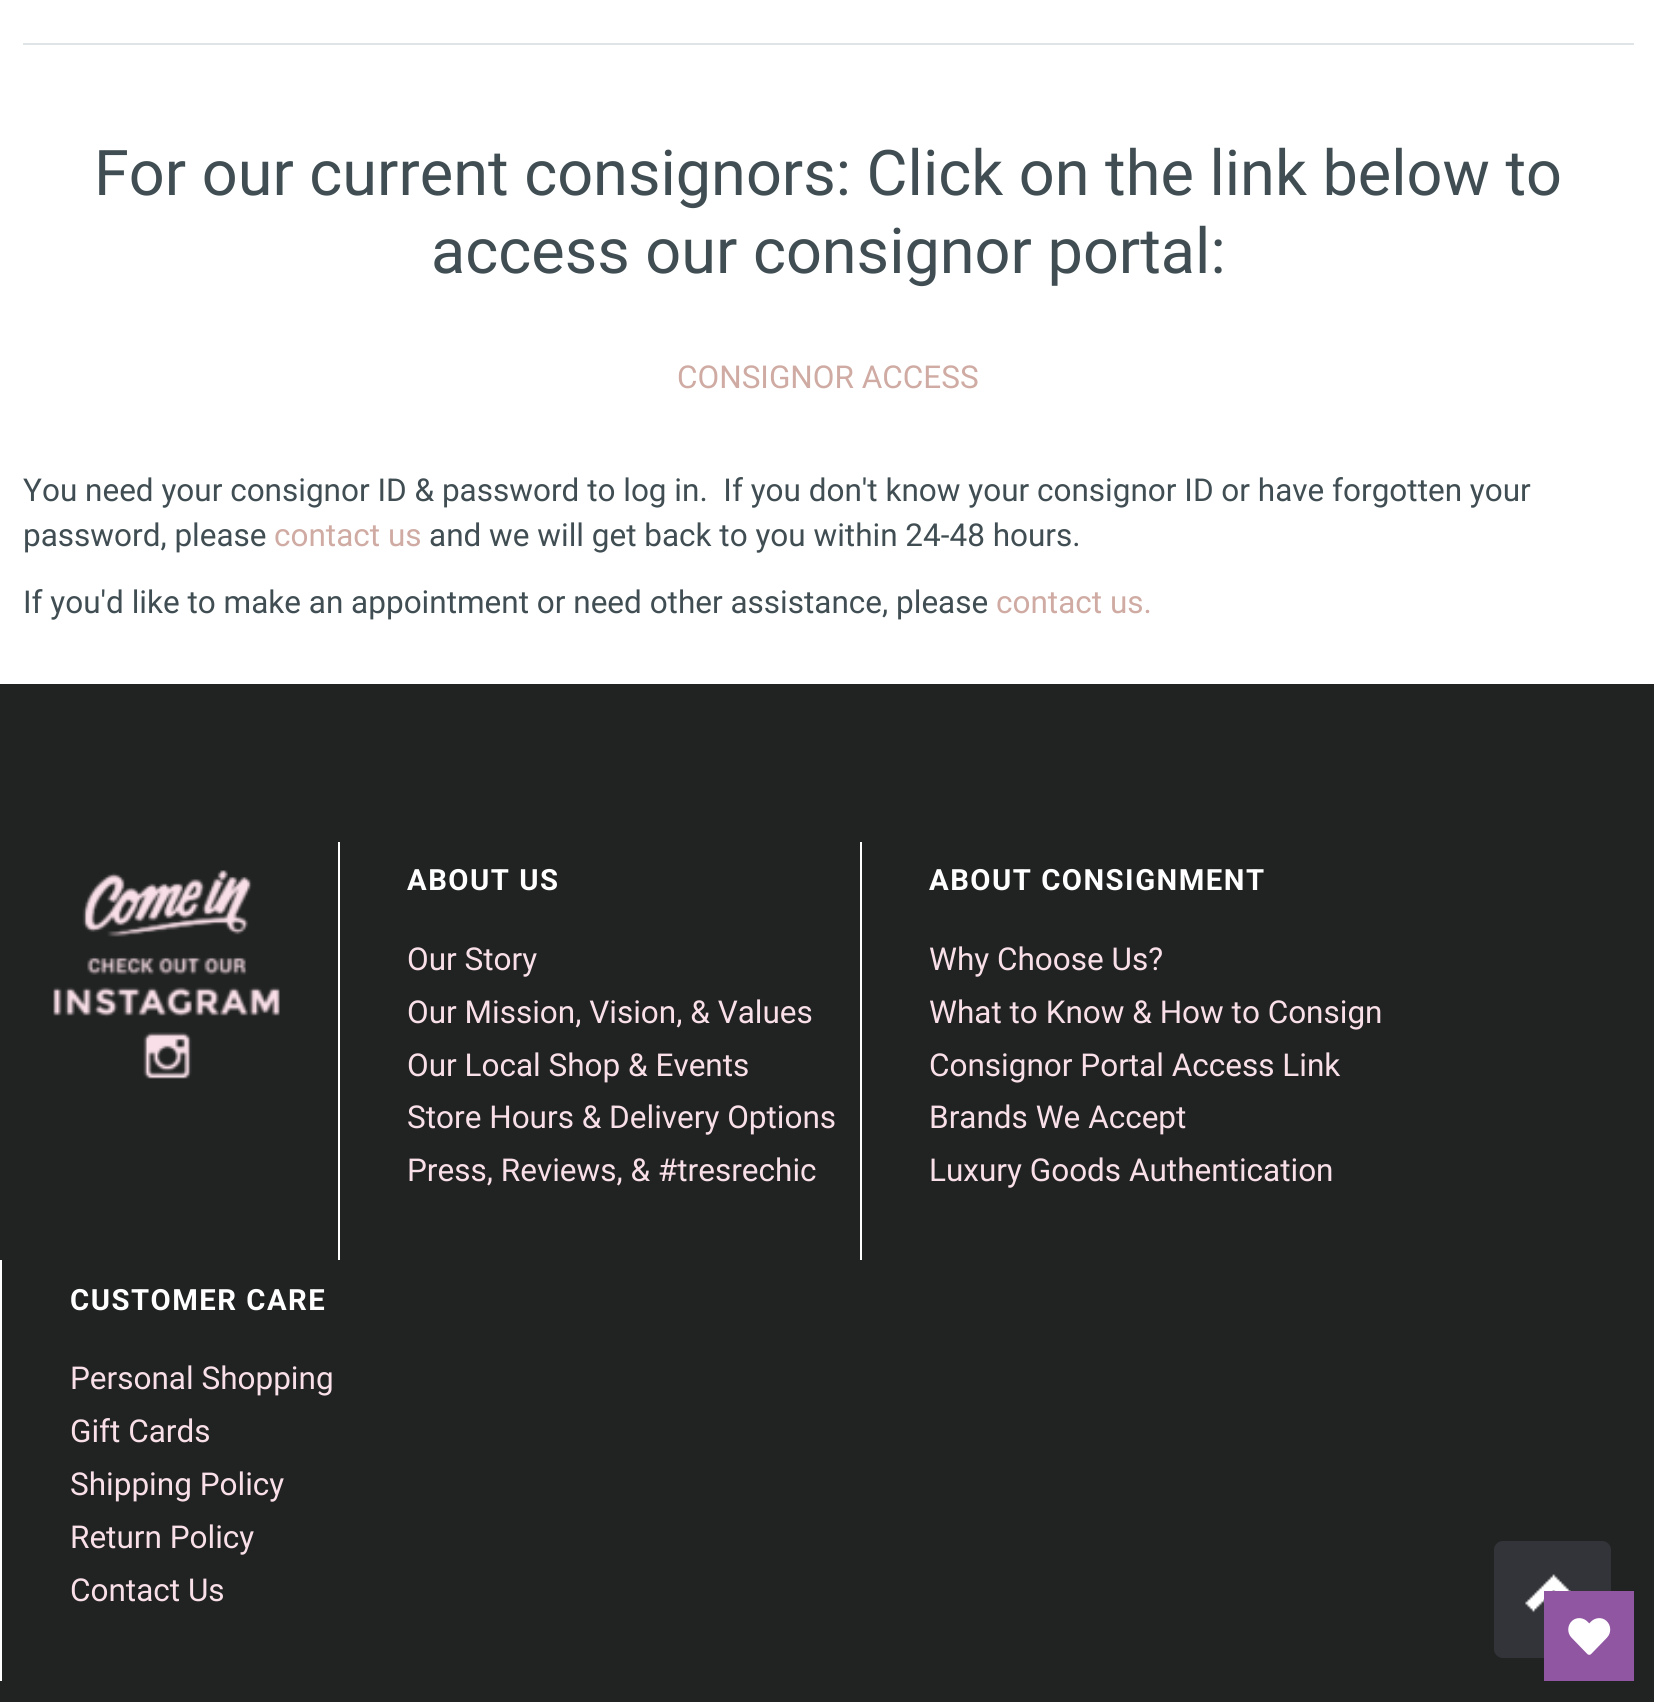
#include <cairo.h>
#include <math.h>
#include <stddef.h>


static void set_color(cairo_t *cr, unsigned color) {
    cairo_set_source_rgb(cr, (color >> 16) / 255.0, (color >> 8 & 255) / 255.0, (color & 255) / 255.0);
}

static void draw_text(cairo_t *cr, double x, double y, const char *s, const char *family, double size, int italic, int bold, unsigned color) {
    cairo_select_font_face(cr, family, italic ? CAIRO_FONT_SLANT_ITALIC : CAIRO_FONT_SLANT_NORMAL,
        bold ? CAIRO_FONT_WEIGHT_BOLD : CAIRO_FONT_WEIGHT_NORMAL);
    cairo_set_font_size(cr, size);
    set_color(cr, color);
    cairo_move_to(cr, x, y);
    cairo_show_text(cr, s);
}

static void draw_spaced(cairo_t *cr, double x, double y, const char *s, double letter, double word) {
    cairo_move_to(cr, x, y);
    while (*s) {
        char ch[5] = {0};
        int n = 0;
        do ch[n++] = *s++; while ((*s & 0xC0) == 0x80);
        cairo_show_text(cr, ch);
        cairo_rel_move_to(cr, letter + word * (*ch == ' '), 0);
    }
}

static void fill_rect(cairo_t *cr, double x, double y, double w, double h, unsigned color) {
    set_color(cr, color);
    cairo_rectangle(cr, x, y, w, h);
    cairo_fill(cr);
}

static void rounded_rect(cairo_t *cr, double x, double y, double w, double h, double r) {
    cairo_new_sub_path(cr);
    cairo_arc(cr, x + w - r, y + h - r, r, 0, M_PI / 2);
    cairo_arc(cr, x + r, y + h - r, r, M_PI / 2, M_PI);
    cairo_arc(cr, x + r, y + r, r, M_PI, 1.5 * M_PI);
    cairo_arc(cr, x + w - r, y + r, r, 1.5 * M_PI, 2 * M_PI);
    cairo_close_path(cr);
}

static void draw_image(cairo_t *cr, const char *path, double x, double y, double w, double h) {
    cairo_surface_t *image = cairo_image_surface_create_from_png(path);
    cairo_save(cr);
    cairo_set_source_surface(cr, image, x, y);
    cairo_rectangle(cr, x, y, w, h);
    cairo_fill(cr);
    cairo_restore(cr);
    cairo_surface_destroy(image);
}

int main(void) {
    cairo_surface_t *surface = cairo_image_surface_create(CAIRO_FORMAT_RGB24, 1654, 1702);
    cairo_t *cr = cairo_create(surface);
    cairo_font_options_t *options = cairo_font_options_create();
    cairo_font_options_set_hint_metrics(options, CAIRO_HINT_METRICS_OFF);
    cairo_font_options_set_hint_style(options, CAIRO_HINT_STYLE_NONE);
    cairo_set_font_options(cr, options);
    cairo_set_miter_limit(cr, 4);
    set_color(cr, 0xFFFFFF);
    cairo_paint(cr);
    fill_rect(cr, 23, 43, 1611, 2, 0xDFE4E6);
    draw_text(cr, 94, 195, "For our current consignors: Click on the link below to", "Roboto", 63, 0, 0, 0x404E53);
    draw_text(cr, 431, 273, "access our consignor portal:", "Roboto", 63, 0, 0, 0x404E53);
    draw_text(cr, 677, 388, "CONSIGNOR ACCESS", "Roboto", 31.5, 0, 0, 0xCFABA3);
    draw_text(cr, 23, 501, "You need your consignor ID & password to log in.  If you don't know your consignor ID or have forgotten your", "Roboto", 31.5, 0, 0, 0x404E53);
    draw_text(cr, 23, 546, "password, please", "Roboto", 31.5, 0, 0, 0x404E53);
    draw_text(cr, 274, 546, "contact us", "Roboto", 31.5, 0, 0, 0xCFABA3);
    draw_text(cr, 429, 546, "and we will get back to you within 24-48 hours.", "Roboto", 31.5, 0, 0, 0x404E53);
    draw_text(cr, 23, 613, "If you'd like to make an appointment or need other assistance, please", "Roboto", 31.5, 0, 0, 0x404E53);
    draw_text(cr, 996, 613, "contact us.", "Roboto", 31.5, 0, 0, 0xCFABA3);
    fill_rect(cr, 0, 684, 1654, 1018, 0x212323);
    draw_image(cr, "assets/img1.png", 53, 870, 227, 209);
    fill_rect(cr, 338, 842, 2, 418, 0xFFFFFF);
    cairo_select_font_face(cr, "Roboto", CAIRO_FONT_SLANT_NORMAL, CAIRO_FONT_WEIGHT_BOLD);
    cairo_set_font_size(cr, 29.25);
    draw_spaced(cr, 407, 890, "ABOUT US", 1.5, 0);
    draw_text(cr, 407, 970, "Our Story", "Roboto", 31.5, 0, 0, 0xF9DFE7);
    draw_text(cr, 407, 1023, "Our Mission, Vision, & Values", "Roboto", 31.5, 0, 0, 0xF9DFE7);
    draw_text(cr, 407, 1076, "Our Local Shop & Events", "Roboto", 31.5, 0, 0, 0xF9DFE7);
    draw_text(cr, 407, 1128, "Store Hours & Delivery Options", "Roboto", 31.5, 0, 0, 0xF9DFE7);
    draw_text(cr, 407, 1181, "Press, Reviews, & #tresrechic", "Roboto", 31.5, 0, 0, 0xF9DFE7);
    fill_rect(cr, 860, 842, 2, 418, 0xFFFFFF);
    cairo_select_font_face(cr, "Roboto", CAIRO_FONT_SLANT_NORMAL, CAIRO_FONT_WEIGHT_BOLD);
    cairo_set_font_size(cr, 29.25);
    draw_spaced(cr, 929, 890, "ABOUT CONSIGNMENT", 1.5, 0);
    draw_text(cr, 929, 970, "Why Choose Us?", "Roboto", 31.5, 0, 0, 0xF9DFE7);
    draw_text(cr, 929, 1023, "What to Know & How to Consign", "Roboto", 31.5, 0, 0, 0xF9DFE7);
    draw_text(cr, 929, 1076, "Consignor Portal Access Link", "Roboto", 31.5, 0, 0, 0xF9DFE7);
    draw_text(cr, 929, 1128, "Brands We Accept", "Roboto", 31.5, 0, 0, 0xF9DFE7);
    draw_text(cr, 929, 1181, "Luxury Goods Authentication", "Roboto", 31.5, 0, 0, 0xF9DFE7);
    fill_rect(cr, 0, 1260, 2, 421, 0xFFFFFF);
    cairo_select_font_face(cr, "Roboto", CAIRO_FONT_SLANT_NORMAL, CAIRO_FONT_WEIGHT_BOLD);
    cairo_set_font_size(cr, 29.25);
    draw_spaced(cr, 70, 1310, "CUSTOMER CARE", 1.5, 0);
    draw_text(cr, 70, 1389, "Personal Shopping", "Roboto", 31.5, 0, 0, 0xF9DFE7);
    draw_text(cr, 70, 1442, "Gift Cards", "Roboto", 31.5, 0, 0, 0xF9DFE7);
    draw_text(cr, 70, 1495, "Shipping Policy", "Roboto", 31.5, 0, 0, 0xF9DFE7);
    draw_text(cr, 70, 1548, "Return Policy", "Roboto", 31.5, 0, 0, 0xF9DFE7);
    draw_text(cr, 70, 1601, "Contact Us", "Roboto", 31.5, 0, 0, 0xF9DFE7);
    set_color(cr, 0x333439);
    rounded_rect(cr, 1494, 1541, 117, 117, 9);
    cairo_fill(cr);
    draw_image(cr, "assets/img2.png", 1525, 1574, 46, 39);
    fill_rect(cr, 1544, 1591, 90, 90, 0x9056A2);
    draw_image(cr, "assets/img3.png", 1568, 1618, 43, 37);
    cairo_surface_write_to_png(surface, "output.png");
    cairo_font_options_destroy(options);
    cairo_destroy(cr);
    cairo_surface_destroy(surface);
    return 0;
}
